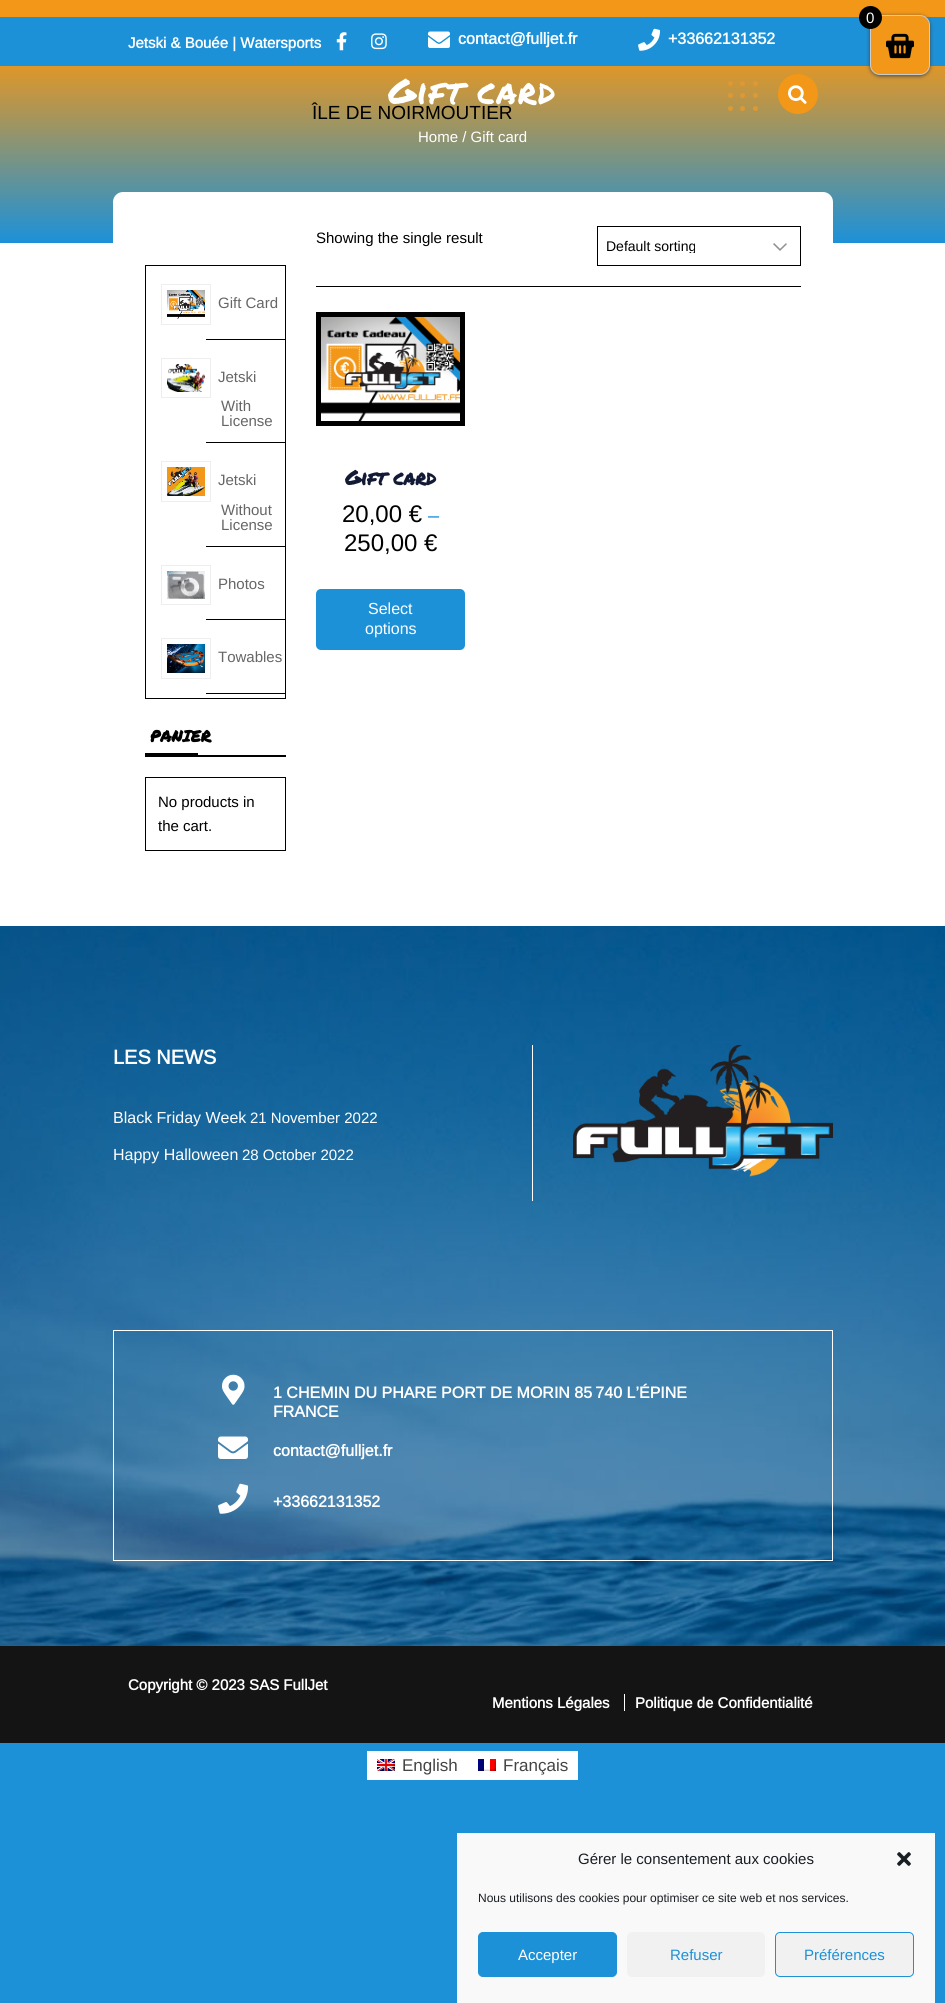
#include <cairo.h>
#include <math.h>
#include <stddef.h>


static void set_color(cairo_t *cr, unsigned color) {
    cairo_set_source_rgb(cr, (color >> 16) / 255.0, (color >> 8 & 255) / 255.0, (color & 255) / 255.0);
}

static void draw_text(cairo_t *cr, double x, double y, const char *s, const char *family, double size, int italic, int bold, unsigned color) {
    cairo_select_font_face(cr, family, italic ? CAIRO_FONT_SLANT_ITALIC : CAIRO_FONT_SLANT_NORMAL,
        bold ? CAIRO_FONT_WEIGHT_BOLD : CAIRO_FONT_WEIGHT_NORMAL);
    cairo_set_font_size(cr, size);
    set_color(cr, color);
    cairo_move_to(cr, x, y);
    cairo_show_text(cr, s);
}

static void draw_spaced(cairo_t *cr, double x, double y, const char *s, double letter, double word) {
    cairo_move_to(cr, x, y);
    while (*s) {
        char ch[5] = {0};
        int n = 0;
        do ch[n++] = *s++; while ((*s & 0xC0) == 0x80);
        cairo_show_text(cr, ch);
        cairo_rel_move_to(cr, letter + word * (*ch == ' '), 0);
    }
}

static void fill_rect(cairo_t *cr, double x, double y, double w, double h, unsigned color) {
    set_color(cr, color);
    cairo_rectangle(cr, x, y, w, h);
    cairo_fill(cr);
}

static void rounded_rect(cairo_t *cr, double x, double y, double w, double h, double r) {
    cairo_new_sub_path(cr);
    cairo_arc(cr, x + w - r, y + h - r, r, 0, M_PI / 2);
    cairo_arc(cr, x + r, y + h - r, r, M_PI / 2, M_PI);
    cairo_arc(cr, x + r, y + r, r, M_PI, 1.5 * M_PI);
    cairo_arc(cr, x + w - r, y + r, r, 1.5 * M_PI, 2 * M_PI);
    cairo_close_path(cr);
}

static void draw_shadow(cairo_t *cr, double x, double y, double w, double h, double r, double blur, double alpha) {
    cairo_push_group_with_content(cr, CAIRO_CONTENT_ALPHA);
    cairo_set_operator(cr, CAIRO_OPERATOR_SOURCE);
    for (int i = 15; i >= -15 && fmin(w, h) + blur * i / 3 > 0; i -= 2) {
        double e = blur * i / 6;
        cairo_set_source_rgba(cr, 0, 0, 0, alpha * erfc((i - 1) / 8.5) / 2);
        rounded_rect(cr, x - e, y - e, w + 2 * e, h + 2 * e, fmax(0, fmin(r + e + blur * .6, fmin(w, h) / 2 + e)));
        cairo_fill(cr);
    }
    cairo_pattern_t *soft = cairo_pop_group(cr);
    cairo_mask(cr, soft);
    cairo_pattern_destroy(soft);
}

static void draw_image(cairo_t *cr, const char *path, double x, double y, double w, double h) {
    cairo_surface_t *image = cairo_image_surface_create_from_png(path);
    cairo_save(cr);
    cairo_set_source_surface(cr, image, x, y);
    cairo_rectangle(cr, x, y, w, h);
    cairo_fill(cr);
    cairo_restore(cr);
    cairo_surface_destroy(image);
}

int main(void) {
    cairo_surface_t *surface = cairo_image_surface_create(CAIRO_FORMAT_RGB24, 945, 2003);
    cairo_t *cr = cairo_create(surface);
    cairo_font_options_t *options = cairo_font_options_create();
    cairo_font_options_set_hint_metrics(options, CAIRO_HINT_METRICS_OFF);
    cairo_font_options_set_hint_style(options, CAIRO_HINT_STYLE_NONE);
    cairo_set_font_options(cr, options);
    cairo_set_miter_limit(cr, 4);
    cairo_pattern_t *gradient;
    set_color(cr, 0x1C91D8);
    cairo_paint(cr);
    gradient = cairo_pattern_create_linear(473, 243, 473, 0);
    cairo_pattern_add_color_stop_rgba(gradient, 0, 0.11, 0.569, 0.847, 1);
    cairo_pattern_add_color_stop_rgba(gradient, 0.8, 0.949, 0.592, 0.09, 1);
    cairo_set_source(cr, gradient);
    cairo_pattern_destroy(gradient);
    cairo_rectangle(cr, 0, 0, 945, 241);
    cairo_fill(cr);
    fill_rect(cr, 0, 17, 945, 49, 0x1C91D8);
    set_color(cr, 0x444444);
    draw_shadow(cr, 870, 16, 60, 60, 10, 2, 1);
    set_color(cr, 0xF29717);
    rounded_rect(cr, 870.5, 15.5, 59, 59, 9.5);
    cairo_fill_preserve(cr);
    set_color(cr, 0xCCCCCC);
    cairo_set_line_width(cr, 1);
    cairo_stroke(cr);
    set_color(cr, 0x000000);
    cairo_arc(cr, 870.5, 17.5, 11.5, 0, 2 * M_PI);
    cairo_fill(cr);
    draw_text(cr, 866, 23, "0", "Arimo", 15, 0, 0, 0xFFFFFF);
    draw_image(cr, "assets/img1.png", 886, 33, 28, 26);
    fill_rect(cr, 0, 243, 945, 683, 0xFFFFFF);
    rounded_rect(cr, 113, 192, 720, 683, 10);
    cairo_fill(cr);
    cairo_rectangle(cr, 145.5, 265.5, 140, 433);
    set_color(cr, 0x000000);
    cairo_stroke(cr);
    fill_rect(cr, 206, 339, 79, 1, 0x000000);
    cairo_rectangle(cr, 161.5, 284.5, 49, 40);
    set_color(cr, 0xEEEEEE);
    cairo_stroke(cr);
    draw_image(cr, "assets/img2.png", 167, 290, 38, 29);
    draw_text(cr, 218, 308, "Gift Card", "Arimo", 15, 0, 0, 0x666666);
    fill_rect(cr, 206, 442, 79, 1, 0x000000);
    cairo_rectangle(cr, 161.5, 358.5, 49, 39);
    set_color(cr, 0xEEEEEE);
    cairo_stroke(cr);
    draw_image(cr, "assets/img3.png", 167, 364, 38, 28);
    draw_text(cr, 218, 382, "Jetski", "Arimo", 15, 0, 0, 0x666666);
    draw_text(cr, 221, 411, "With", "Arimo", 15, 0, 0, 0x666666);
    draw_text(cr, 221, 426, "License", "Arimo", 15, 0, 0, 0x666666);
    fill_rect(cr, 206, 546, 79, 1, 0x000000);
    cairo_rectangle(cr, 161.5, 461.5, 49, 40);
    set_color(cr, 0xEEEEEE);
    cairo_stroke(cr);
    draw_image(cr, "assets/img4.png", 167, 467, 38, 29);
    draw_text(cr, 218, 485, "Jetski", "Arimo", 15, 0, 0, 0x666666);
    draw_text(cr, 221, 515, "Without", "Arimo", 15, 0, 0, 0x666666);
    draw_text(cr, 221, 530, "License", "Arimo", 15, 0, 0, 0x666666);
    fill_rect(cr, 206, 619, 79, 1, 0x000000);
    cairo_rectangle(cr, 161.5, 565.5, 49, 39);
    set_color(cr, 0xEEEEEE);
    cairo_stroke(cr);
    draw_image(cr, "assets/img5.png", 167, 571, 38, 28);
    draw_text(cr, 218, 589, "Photos", "Arimo", 15, 0, 0, 0x666666);
    fill_rect(cr, 206, 693, 79, 1, 0x000000);
    cairo_rectangle(cr, 161.5, 638.5, 49, 40);
    set_color(cr, 0xEEEEEE);
    cairo_stroke(cr);
    draw_image(cr, "assets/img6.png", 167, 644, 38, 29);
    draw_text(cr, 218, 662, "Towables", "Arimo", 15, 0, 0, 0x666666);
    fill_rect(cr, 145, 755, 141, 2, 0x000000);
    draw_text(cr, 150, 742, "PANIER", "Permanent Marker", 16, 0, 1, 0x000000);
    fill_rect(cr, 145, 753, 53, 2, 0x000000);
    cairo_rectangle(cr, 145.5, 777.5, 140, 73);
    cairo_stroke(cr);
    draw_text(cr, 158, 807, "No products in", "Arimo", 15, 0, 0, 0x000000);
    draw_text(cr, 158, 831, "the cart.", "Arimo", 15, 0, 0, 0x000000);
    draw_text(cr, 316, 243, "Showing the single result", "Arimo", 15, 0, 0, 0x000000);
    draw_image(cr, "assets/img7.png", 773, 243, 14, 8);
    cairo_rectangle(cr, 597.5, 226.5, 203, 39);
    cairo_stroke(cr);
    cairo_save(cr);
    cairo_rectangle(cr, 606, 239, 154, 14);
    cairo_clip(cr);
    draw_text(cr, 606, 251, "Default sorting", "Arimo", 14, 0, 0, 0x000000);
    cairo_restore(cr);
    fill_rect(cr, 316, 286, 485, 1, 0x000000);
    cairo_rectangle(cr, 318.5, 314.5, 144, 109);
    cairo_set_line_width(cr, 5);
    cairo_stroke(cr);
    draw_image(cr, "assets/img8.png", 321, 317, 139, 104);
    draw_text(cr, 345, 485, "Gift card", "Permanent Marker", 20, 0, 1, 0x121A36);
    draw_text(cr, 342, 522, "20,00 €", "Arimo", 24, 0, 0, 0x000000);
    draw_text(cr, 428, 522, "–", "Arimo", 20, 0, 0, 0x1C91D8);
    draw_text(cr, 344, 551, "250,00 €", "Arimo", 24, 0, 0, 0x000000);
    set_color(cr, 0x1C91D8);
    rounded_rect(cr, 316, 589, 149, 61, 5);
    cairo_fill(cr);
    draw_text(cr, 368, 614, "Select", "Arimo", 16, 0, 0, 0xFFFFFF);
    draw_text(cr, 365, 634, "options", "Arimo", 16, 0, 0, 0xFFFFFF);
    draw_image(cr, "assets/img9.png", 0, 926, 945, 720);
    fill_rect(cr, 532, 1045, 1, 156, 0xFFFFFF);
    draw_text(cr, 113, 1064, "LES NEWS", "Arimo", 20, 0, 1, 0xFFFFFF);
    draw_text(cr, 113, 1123, "Black Friday Week", "Arimo", 16, 0, 0, 0xFFFFFF);
    draw_text(cr, 250, 1123, "21 November 2022", "Arimo", 15, 0, 0, 0xFFFFFF);
    draw_text(cr, 113, 1160, "Happy Halloween", "Arimo", 16, 0, 0, 0xFFFFFF);
    draw_text(cr, 242, 1160, "28 October 2022", "Arimo", 15, 0, 0, 0xFFFFFF);
    draw_image(cr, "assets/img10.png", 573, 1045, 260, 132);
    cairo_rectangle(cr, 113.5, 1330.5, 719, 230);
    cairo_set_line_width(cr, 1);
    cairo_stroke(cr);
    draw_image(cr, "assets/img11.png", 222, 1374, 23, 31);
    draw_text(cr, 273, 1398, "1 CHEMIN DU PHARE PORT DE MORIN 85 740 L’ÉPINE", "Arimo", 16, 0, 1, 0xFFFFFF);
    draw_text(cr, 273, 1417, "FRANCE", "Arimo", 16, 0, 1, 0xFFFFFF);
    draw_image(cr, "assets/img12.png", 218, 1436, 30, 23);
    draw_text(cr, 273, 1456, "contact@fulljet.fr", "Arimo", 16, 0, 1, 0xFFFFFF);
    draw_image(cr, "assets/img13.png", 218, 1483, 31, 31);
    draw_text(cr, 273, 1507, "+33662131352", "Arimo", 16, 0, 1, 0xFFFFFF);
    fill_rect(cr, 0, 1646, 945, 97, 0x141414);
    draw_text(cr, 128, 1690, "Copyright © 2023 SAS FullJet", "Arimo", 15, 0, 1, 0xFFFFFF);
    draw_text(cr, 492, 1708, "Mentions Légales", "Arimo", 15, 0, 1, 0xFFFFFF);
    fill_rect(cr, 624, 1694, 1, 17, 0xFFFFFF);
    draw_text(cr, 635, 1708, "Politique de Confidentialité", "Arimo", 15, 0, 1, 0xFFFFFF);
    fill_rect(cr, 367, 1751, 211, 29, 0xFFFFFF);
    draw_image(cr, "assets/img14.png", 377, 1759, 18, 12);
    draw_text(cr, 402, 1771, "English", "Arimo", 17, 0, 0, 0x444444);
    draw_image(cr, "assets/img15.png", 478, 1759, 18, 12);
    draw_text(cr, 503, 1771, "Français", "Arimo", 17, 0, 0, 0x444444);
    draw_text(cr, 128, 48, "Jetski & Bouée | Watersports", "Arimo", 15, 0, 1, 0xFFFFFF);
    draw_image(cr, "assets/img16.png", 336, 32, 11, 19);
    draw_image(cr, "assets/img17.png", 371, 33, 16, 17);
    draw_image(cr, "assets/img18.png", 428, 31, 22, 17);
    draw_text(cr, 458, 44, "contact@fulljet.fr", "Arimo", 16, 0, 1, 0xFFFFFF);
    draw_image(cr, "assets/img19.png", 638, 28, 22, 23);
    draw_text(cr, 668, 44, "+33662131352", "Arimo", 16, 0, 1, 0xFFFFFF);
    draw_text(cr, 312, 119, "ÎLE DE NOIRMOUTIER", "Arimo", 19, 0, 0, 0x000000);
    set_color(cr, 0xDD9933);
    cairo_new_path(cr);
    cairo_arc(cr, 730.5, 83.5, 2.5, 0, 2 * M_PI);
    cairo_fill(cr);
    cairo_arc(cr, 742.5, 83.5, 2.5, 0, 2 * M_PI);
    cairo_fill(cr);
    cairo_arc(cr, 755.5, 83.5, 2.5, 0, 2 * M_PI);
    cairo_fill(cr);
    cairo_arc(cr, 730.5, 95.5, 2.5, 0, 2 * M_PI);
    cairo_fill(cr);
    cairo_arc(cr, 742.5, 95.5, 2.5, 0, 2 * M_PI);
    cairo_fill(cr);
    cairo_arc(cr, 755.5, 95.5, 2.5, 0, 2 * M_PI);
    cairo_fill(cr);
    cairo_arc(cr, 730.5, 108.5, 2.5, 0, 2 * M_PI);
    cairo_fill(cr);
    cairo_arc(cr, 742.5, 108.5, 2.5, 0, 2 * M_PI);
    cairo_fill(cr);
    cairo_arc(cr, 755.5, 108.5, 2.5, 0, 2 * M_PI);
    cairo_fill(cr);
    set_color(cr, 0xF29717);
    cairo_arc(cr, 798, 94, 20, 0, 2 * M_PI);
    cairo_fill(cr);
    draw_image(cr, "assets/img20.png", 788, 85, 19, 19);
    cairo_select_font_face(cr, "Permanent Marker", CAIRO_FONT_SLANT_NORMAL, CAIRO_FONT_WEIGHT_NORMAL);
    cairo_set_font_size(cr, 35);
    set_color(cr, 0xFFFFFF);
    draw_spaced(cr, 388, 104, "Gift card", 1, 0);
    draw_text(cr, 418, 142, "Home / Gift card", "Arimo", 15, 0, 0, 0xFFFFFF);
    fill_rect(cr, 457, 1833, 478, 170, 0xF9F9F9);
    draw_text(cr, 578, 1864, "Gérer le consentement aux cookies", "Arimo", 15, 0, 0, 0x191E23);
    draw_image(cr, "assets/img21.png", 897, 1852, 14, 14);
    draw_text(cr, 478, 1902, "Nous utilisons des cookies pour optimiser ce site web et nos services.", "Arimo", 12, 0, 0, 0x191E23);
    set_color(cr, 0x1C91D8);
    rounded_rect(cr, 478.5, 1932.5, 138, 44, 4.5);
    cairo_fill_preserve(cr);
    cairo_stroke(cr);
    draw_text(cr, 518, 1960, "Accepter", "Arimo", 15, 0, 0, 0xFFFFFF);
    set_color(cr, 0xF1F1F1);
    rounded_rect(cr, 627, 1932, 138, 45, 5);
    cairo_fill(cr);
    draw_text(cr, 670, 1960, "Refuser", "Arimo", 15, 0, 0, 0x1C91D8);
    set_color(cr, 0xF1F1F1);
    rounded_rect(cr, 775.5, 1932.5, 138, 44, 4.5);
    cairo_fill_preserve(cr);
    set_color(cr, 0x1C91D8);
    cairo_stroke(cr);
    draw_text(cr, 804, 1960, "Préférences", "Arimo", 15, 0, 0, 0x1C91D8);
    cairo_surface_write_to_png(surface, "output.png");
    cairo_font_options_destroy(options);
    cairo_destroy(cr);
    cairo_surface_destroy(surface);
    return 0;
}
